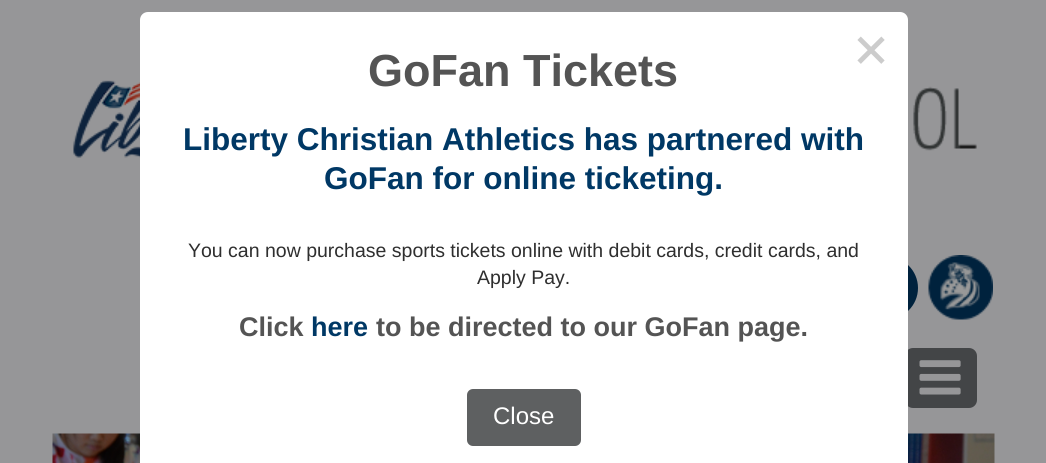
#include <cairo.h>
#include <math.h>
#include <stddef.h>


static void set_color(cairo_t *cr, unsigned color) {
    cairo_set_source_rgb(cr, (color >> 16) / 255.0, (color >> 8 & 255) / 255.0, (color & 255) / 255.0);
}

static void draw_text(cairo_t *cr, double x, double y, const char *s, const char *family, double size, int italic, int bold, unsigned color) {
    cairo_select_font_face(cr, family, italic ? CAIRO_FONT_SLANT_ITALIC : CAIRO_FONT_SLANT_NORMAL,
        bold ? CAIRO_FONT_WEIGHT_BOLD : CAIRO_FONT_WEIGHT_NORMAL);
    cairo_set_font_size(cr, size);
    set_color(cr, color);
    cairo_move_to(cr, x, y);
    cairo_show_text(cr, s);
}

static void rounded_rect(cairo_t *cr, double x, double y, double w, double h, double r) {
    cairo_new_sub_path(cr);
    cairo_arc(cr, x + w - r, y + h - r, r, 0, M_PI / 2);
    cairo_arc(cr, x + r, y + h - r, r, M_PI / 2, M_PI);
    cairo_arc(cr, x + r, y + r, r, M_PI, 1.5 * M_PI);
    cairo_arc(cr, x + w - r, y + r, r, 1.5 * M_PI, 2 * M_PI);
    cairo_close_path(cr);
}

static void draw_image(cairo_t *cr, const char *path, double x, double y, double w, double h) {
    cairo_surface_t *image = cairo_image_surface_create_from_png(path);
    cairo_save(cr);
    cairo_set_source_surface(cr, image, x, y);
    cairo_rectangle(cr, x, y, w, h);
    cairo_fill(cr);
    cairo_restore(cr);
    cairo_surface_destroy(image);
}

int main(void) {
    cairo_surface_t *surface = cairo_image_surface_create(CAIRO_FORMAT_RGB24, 1046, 463);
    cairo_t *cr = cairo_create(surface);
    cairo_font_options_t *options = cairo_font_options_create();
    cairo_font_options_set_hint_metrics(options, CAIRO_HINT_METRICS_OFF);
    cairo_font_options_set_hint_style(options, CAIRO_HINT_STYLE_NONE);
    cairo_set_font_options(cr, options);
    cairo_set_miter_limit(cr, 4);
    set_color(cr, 0x969698);
    cairo_paint(cr);
    draw_image(cr, "assets/img1.png", 73, 80, 904, 78);
    set_color(cr, 0x434547);
    rounded_rect(cr, 905, 348, 72, 60, 8);
    cairo_fill(cr);
    draw_image(cr, "assets/img5.png", 52, 433, 943, 30);
    set_color(cr, 0xFFFFFF);
    cairo_new_path(cr);
    cairo_move_to(cr, 148, 12);
    cairo_line_to(cr, 900, 12);
    cairo_curve_to(cr, 904.5, 12, 908, 15.5, 908, 20);
    cairo_line_to(cr, 908, 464);
    cairo_line_to(cr, 140, 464);
    cairo_line_to(cr, 140, 20);
    cairo_curve_to(cr, 140, 15.5, 143.5, 12, 148, 12);
    cairo_close_path(cr);
    cairo_fill(cr);
    draw_text(cr, 853, 69, "×", "DejaVu Sans Mono", 60, 0, 0, 0xCCCCCC);
    draw_text(cr, 368, 86, "GoFan Tickets", "Liberation Sans", 45, 0, 1, 0x545454);
    draw_text(cr, 183, 150, "Liberty Christian Athletics has partnered with", "Liberation Sans", 31.5, 0, 1, 0x003865);
    draw_text(cr, 324, 189, "GoFan for online ticketing.", "Liberation Sans", 31.5, 0, 1, 0x003865);
    draw_text(cr, 188, 257, "You can now purchase sports tickets online with debit cards, credit cards, and", "Liberation Sans", 19.5, 0, 0, 0x2F2F2F);
    draw_text(cr, 477, 284, "Apply Pay.", "Liberation Sans", 19.5, 0, 0, 0x2F2F2F);
    draw_text(cr, 239, 336, "Click", "Liberation Sans", 27, 0, 1, 0x545454);
    draw_text(cr, 311, 336, "here", "Liberation Sans", 27, 0, 1, 0x003865);
    draw_text(cr, 376, 336, "to be directed to our GoFan page.", "Liberation Sans", 27, 0, 1, 0x545454);
    set_color(cr, 0x5E6061);
    rounded_rect(cr, 467, 389, 114, 57, 6);
    cairo_fill(cr);
    draw_text(cr, 493, 424, "Close", "Liberation Sans", 24, 0, 0, 0xFFFFFF);
    draw_image(cr, "assets/img2.png", 908, 265, 10, 46);
    draw_image(cr, "assets/img3.png", 928, 255, 65, 65);
    draw_image(cr, "assets/img4.png", 919, 360, 42, 35);
    cairo_surface_write_to_png(surface, "output.png");
    cairo_font_options_destroy(options);
    cairo_destroy(cr);
    cairo_surface_destroy(surface);
    return 0;
}
